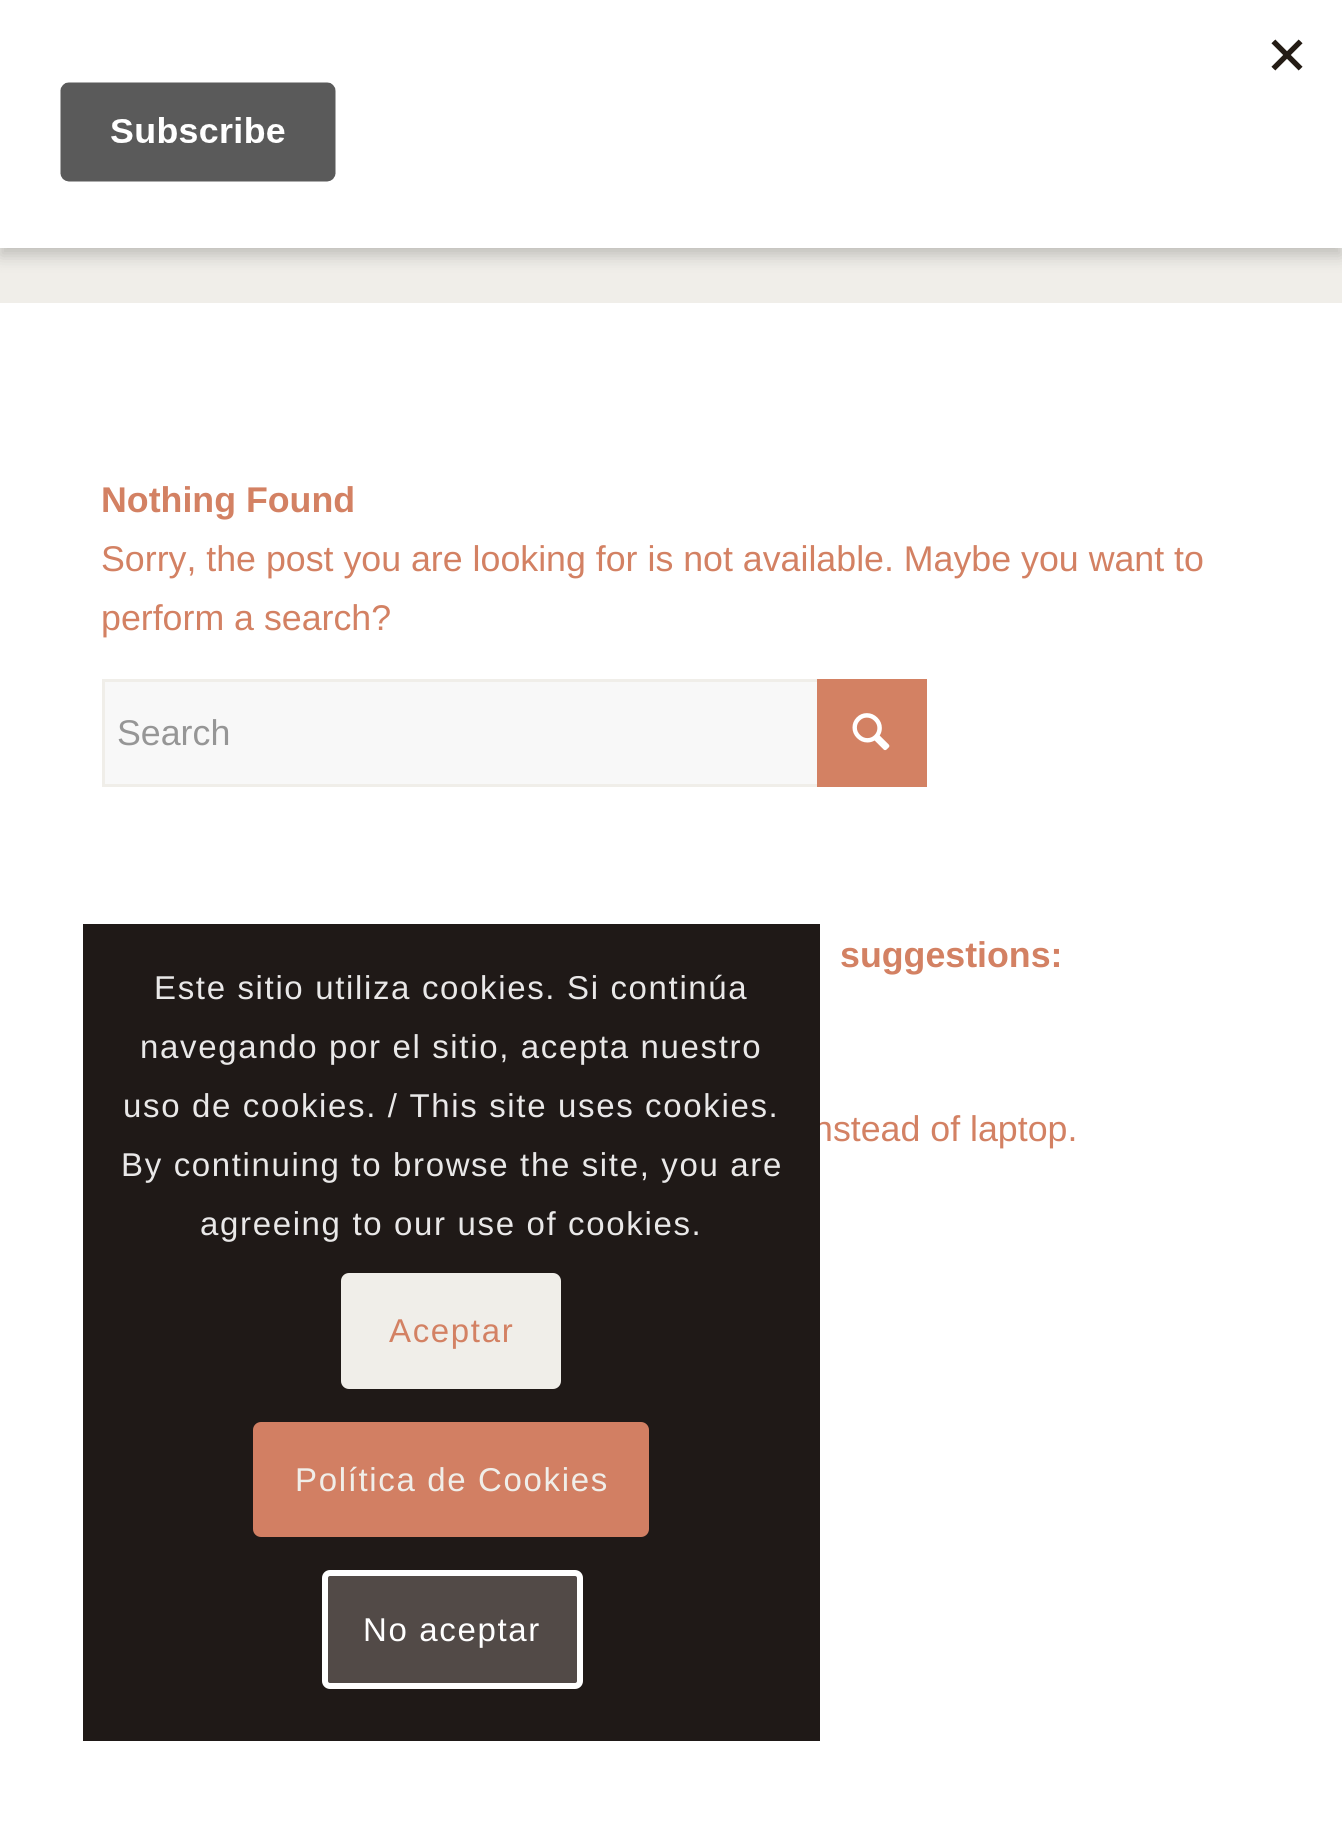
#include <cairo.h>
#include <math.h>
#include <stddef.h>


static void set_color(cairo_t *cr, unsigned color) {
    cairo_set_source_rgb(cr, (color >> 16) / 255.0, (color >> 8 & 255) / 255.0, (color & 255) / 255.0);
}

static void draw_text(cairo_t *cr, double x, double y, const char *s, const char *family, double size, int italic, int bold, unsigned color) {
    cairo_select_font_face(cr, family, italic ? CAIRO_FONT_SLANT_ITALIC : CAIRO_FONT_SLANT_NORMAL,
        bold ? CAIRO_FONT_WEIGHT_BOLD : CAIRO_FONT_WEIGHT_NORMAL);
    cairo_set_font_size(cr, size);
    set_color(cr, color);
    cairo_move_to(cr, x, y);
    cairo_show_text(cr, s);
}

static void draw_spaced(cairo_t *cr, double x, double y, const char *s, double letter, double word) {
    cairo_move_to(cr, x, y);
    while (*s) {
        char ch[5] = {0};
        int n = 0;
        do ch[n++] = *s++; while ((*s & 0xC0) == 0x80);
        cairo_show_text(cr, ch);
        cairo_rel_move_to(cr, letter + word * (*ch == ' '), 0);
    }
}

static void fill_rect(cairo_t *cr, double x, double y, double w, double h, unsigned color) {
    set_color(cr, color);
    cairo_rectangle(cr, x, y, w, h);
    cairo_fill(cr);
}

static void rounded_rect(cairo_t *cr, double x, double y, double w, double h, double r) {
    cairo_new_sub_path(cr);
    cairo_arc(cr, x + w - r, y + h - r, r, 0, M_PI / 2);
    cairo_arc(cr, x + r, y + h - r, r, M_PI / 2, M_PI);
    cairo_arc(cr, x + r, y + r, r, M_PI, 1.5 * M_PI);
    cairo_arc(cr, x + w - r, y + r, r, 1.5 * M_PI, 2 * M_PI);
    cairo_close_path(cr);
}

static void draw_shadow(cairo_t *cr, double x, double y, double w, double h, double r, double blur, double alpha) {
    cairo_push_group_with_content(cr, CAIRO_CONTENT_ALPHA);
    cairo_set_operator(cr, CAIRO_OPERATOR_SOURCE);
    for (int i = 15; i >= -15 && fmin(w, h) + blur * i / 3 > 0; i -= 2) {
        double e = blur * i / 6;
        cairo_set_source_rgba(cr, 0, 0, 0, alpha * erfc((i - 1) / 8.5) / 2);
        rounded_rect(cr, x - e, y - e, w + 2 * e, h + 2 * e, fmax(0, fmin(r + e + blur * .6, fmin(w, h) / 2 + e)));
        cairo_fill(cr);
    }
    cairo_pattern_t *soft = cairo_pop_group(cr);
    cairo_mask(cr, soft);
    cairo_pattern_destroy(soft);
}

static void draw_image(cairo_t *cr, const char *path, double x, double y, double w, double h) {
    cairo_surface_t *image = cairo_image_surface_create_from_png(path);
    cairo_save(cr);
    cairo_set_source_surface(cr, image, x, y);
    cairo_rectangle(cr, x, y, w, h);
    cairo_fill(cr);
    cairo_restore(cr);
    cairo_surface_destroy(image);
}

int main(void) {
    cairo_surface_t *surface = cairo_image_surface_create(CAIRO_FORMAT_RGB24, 1342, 1822);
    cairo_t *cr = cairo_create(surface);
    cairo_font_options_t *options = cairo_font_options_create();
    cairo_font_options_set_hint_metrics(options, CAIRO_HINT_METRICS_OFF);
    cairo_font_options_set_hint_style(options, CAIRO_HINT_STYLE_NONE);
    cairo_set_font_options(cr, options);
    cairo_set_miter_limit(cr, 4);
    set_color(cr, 0xFFFFFF);
    cairo_paint(cr);
    fill_rect(cr, 0, 248, 1342, 55, 0xF0EEE9);
    set_color(cr, 0x000000);
    draw_shadow(cr, 0, 8, 1342, 248, 0, 8, 0.2);
    fill_rect(cr, 0, 0, 1342, 248, 0xFFFFFF);
    draw_image(cr, "assets/img1.png", 60, 39, 1243, 143);
    draw_text(cr, 101, 512, "Nothing Found", "Liberation Sans", 35.75, 0, 1, 0xD38163);
    draw_text(cr, 101, 571, "Sorry, the post you are looking for is not available. Maybe you want to", "Liberation Sans", 35.75, 0, 0, 0xD38163);
    draw_text(cr, 101, 630, "perform a search?", "Liberation Sans", 35.75, 0, 0, 0xD38163);
    fill_rect(cr, 105, 682, 712, 102, 0xF8F8F8);
    cairo_rectangle(cr, 103.5, 680.5, 822, 105);
    set_color(cr, 0xF0EEE9);
    cairo_set_line_width(cr, 3);
    cairo_stroke(cr);
    draw_text(cr, 117, 745, "Search", "Liberation Sans", 35.75, 0, 0, 0x969696);
    fill_rect(cr, 817, 679, 110, 108, 0xD38163);
    draw_image(cr, "assets/img2.png", 852, 713, 38, 38);
    draw_text(cr, 840, 967, "suggestions:", "Liberation Sans", 35.75, 0, 1, 0xD38163);
    draw_text(cr, 813, 1141, "nstead of laptop.", "Liberation Sans", 35.75, 0, 0, 0xD38163);
    fill_rect(cr, 83, 924, 737, 817, 0x1F1917);
    cairo_set_font_size(cr, 33);
    set_color(cr, 0xE9E8E8);
    draw_spaced(cr, 154, 999, "Este sitio utiliza cookies. Si continúa", 1.65, 0);
    draw_spaced(cr, 140, 1058, "navegando por el sitio, acepta nuestro", 1.65, 0);
    draw_spaced(cr, 123, 1117, "uso de cookies. / This site uses cookies.", 1.65, 0);
    draw_spaced(cr, 121, 1176, "By continuing to browse the site, you are", 1.65, 0);
    draw_spaced(cr, 200, 1235, "agreeing to our use of cookies.", 1.65, 0);
    set_color(cr, 0xF0EEE9);
    rounded_rect(cr, 341, 1273, 220, 116, 8);
    cairo_fill(cr);
    set_color(cr, 0xD38163);
    draw_spaced(cr, 389, 1342, "Aceptar", 1.65, 0);
    set_color(cr, 0xD27F63);
    rounded_rect(cr, 256, 1425, 390, 109, 5);
    cairo_fill_preserve(cr);
    cairo_set_line_width(cr, 6);
    cairo_stroke(cr);
    set_color(cr, 0xF0EEE9);
    draw_spaced(cr, 295, 1491, "Política de Cookies", 1.65, 0);
    set_color(cr, 0x524A47);
    rounded_rect(cr, 325, 1573, 255, 113, 5);
    cairo_fill_preserve(cr);
    set_color(cr, 0xFFFFFF);
    cairo_stroke(cr);
    draw_spaced(cr, 363, 1641, "No aceptar", 1.65, 0);
    cairo_surface_write_to_png(surface, "output.png");
    cairo_font_options_destroy(options);
    cairo_destroy(cr);
    cairo_surface_destroy(surface);
    return 0;
}
